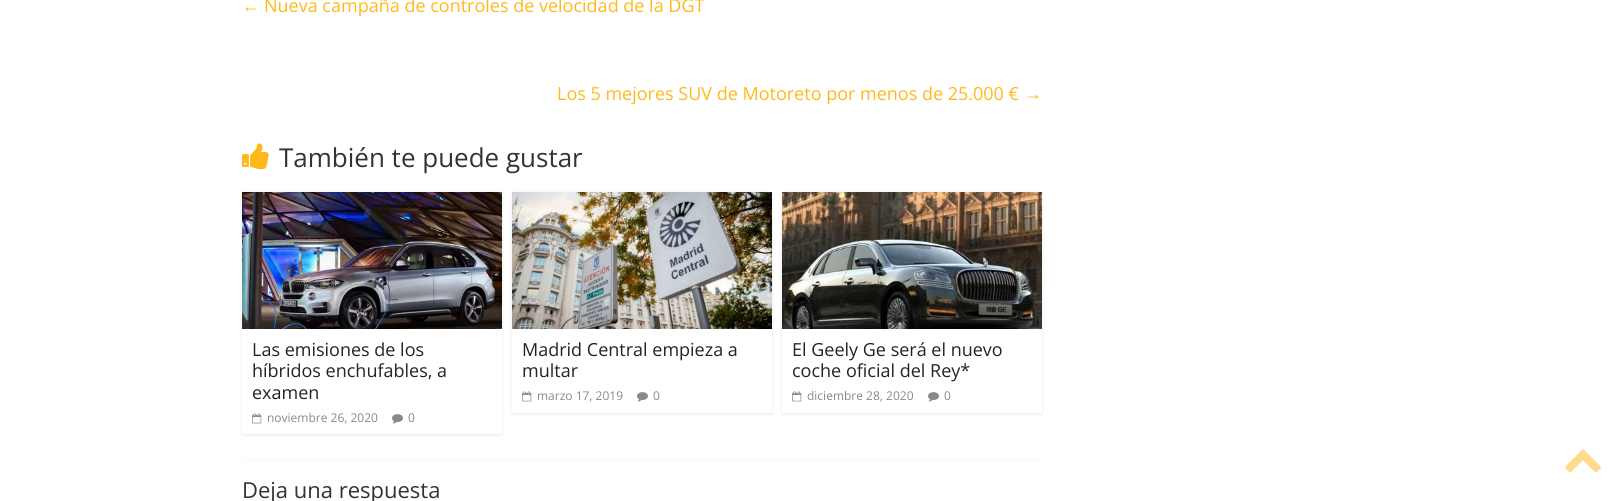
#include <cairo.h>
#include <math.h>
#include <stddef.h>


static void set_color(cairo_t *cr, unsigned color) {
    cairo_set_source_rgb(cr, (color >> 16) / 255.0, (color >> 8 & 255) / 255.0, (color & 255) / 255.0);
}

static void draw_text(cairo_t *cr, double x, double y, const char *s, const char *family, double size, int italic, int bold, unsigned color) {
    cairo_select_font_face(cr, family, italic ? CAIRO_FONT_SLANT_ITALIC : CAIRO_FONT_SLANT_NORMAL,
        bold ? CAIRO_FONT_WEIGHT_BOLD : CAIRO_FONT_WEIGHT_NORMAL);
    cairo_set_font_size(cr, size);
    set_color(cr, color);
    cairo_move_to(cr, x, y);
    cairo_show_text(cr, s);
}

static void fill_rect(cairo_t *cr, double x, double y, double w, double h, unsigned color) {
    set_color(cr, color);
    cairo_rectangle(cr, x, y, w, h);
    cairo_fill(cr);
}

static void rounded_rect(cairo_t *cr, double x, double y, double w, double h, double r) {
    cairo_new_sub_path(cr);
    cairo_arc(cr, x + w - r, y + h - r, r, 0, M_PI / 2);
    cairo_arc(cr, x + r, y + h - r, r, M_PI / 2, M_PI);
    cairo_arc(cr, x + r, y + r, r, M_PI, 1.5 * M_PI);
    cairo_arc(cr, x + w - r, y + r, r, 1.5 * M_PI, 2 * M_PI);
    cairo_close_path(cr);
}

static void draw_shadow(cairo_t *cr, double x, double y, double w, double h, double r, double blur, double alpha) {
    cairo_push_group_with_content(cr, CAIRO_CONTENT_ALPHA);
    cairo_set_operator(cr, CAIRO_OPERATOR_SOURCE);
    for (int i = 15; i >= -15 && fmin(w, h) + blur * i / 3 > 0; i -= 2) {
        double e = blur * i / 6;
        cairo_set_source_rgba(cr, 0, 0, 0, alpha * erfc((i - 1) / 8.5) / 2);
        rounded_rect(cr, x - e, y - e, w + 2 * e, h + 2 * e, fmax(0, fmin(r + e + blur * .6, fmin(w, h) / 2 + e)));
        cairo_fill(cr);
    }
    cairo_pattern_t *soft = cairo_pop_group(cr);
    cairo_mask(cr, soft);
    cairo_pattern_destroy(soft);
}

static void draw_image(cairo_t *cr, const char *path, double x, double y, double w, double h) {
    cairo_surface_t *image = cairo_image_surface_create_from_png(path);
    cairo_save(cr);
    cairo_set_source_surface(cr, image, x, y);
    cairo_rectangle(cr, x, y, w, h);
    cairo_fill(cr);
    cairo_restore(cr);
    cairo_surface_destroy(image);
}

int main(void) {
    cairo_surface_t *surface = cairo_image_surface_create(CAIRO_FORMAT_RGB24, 1623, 501);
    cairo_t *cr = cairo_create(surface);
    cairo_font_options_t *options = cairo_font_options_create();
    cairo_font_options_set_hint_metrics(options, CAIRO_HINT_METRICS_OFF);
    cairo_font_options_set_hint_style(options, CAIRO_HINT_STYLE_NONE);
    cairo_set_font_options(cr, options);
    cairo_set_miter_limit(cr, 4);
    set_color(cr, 0xFFFFFF);
    cairo_paint(cr);
    draw_text(cr, 242, 12, "←", "Liberation Serif", 18, 0, 0, 0xFFB81C);
    draw_text(cr, 264, 12, "Nueva campaña de controles de velocidad de la DGT", "Open Sans", 18, 0, 0, 0xFFB81C);
    draw_text(cr, 557, 100, "Los 5 mejores SUV de Motoreto por menos de 25.000 €", "Open Sans", 18, 0, 0, 0xFFB81C);
    draw_text(cr, 1024, 100, "→", "Liberation Serif", 18, 0, 0, 0xFFB81C);
    draw_image(cr, "assets/img1.png", 242, 143, 27, 27);
    draw_text(cr, 279, 167, "También te puede gustar", "Open Sans", 26, 0, 0, 0x333333);
    cairo_save(cr);
    cairo_set_fill_rule(cr, CAIRO_FILL_RULE_EVEN_ODD);
    cairo_new_path(cr);
    cairo_move_to(cr, 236, 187);
    cairo_line_to(cr, 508, 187);
    cairo_line_to(cr, 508, 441);
    cairo_line_to(cr, 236, 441);
    cairo_close_path(cr);
    cairo_move_to(cr, 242, 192);
    cairo_line_to(cr, 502, 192);
    cairo_line_to(cr, 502, 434);
    cairo_line_to(cr, 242, 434);
    cairo_close_path(cr);
    cairo_clip(cr);
    set_color(cr, 0x000000);
    draw_shadow(cr, 242, 193, 260, 242, 0, 1.5, 0.1);
    cairo_restore(cr);
    draw_image(cr, "assets/img2.png", 242, 192, 260, 137);
    draw_text(cr, 252, 356, "Las emisiones de los", "Open Sans", 18, 0, 0, 0x232323);
    draw_text(cr, 252, 377, "híbridos enchufables, a", "Open Sans", 18, 0, 0, 0x232323);
    draw_text(cr, 252, 399, "examen", "Open Sans", 18, 0, 0, 0x232323);
    draw_image(cr, "assets/img3.png", 252, 413, 10, 11);
    draw_text(cr, 267, 422, "noviembre 26, 2020", "Open Sans", 12, 0, 0, 0x888888);
    draw_image(cr, "assets/img4.png", 392, 414, 11, 10);
    draw_text(cr, 408, 422, "0", "Open Sans", 12, 0, 0, 0x888888);
    cairo_save(cr);
    cairo_set_fill_rule(cr, CAIRO_FILL_RULE_EVEN_ODD);
    cairo_new_path(cr);
    cairo_move_to(cr, 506, 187);
    cairo_line_to(cr, 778, 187);
    cairo_line_to(cr, 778, 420);
    cairo_line_to(cr, 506, 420);
    cairo_close_path(cr);
    cairo_move_to(cr, 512, 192);
    cairo_line_to(cr, 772, 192);
    cairo_line_to(cr, 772, 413);
    cairo_line_to(cr, 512, 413);
    cairo_close_path(cr);
    cairo_clip(cr);
    set_color(cr, 0x000000);
    draw_shadow(cr, 512, 193, 260, 221, 0, 1.5, 0.1);
    cairo_restore(cr);
    draw_image(cr, "assets/img5.png", 512, 192, 260, 137);
    draw_text(cr, 522, 356, "Madrid Central empieza a", "Open Sans", 18, 0, 0, 0x232323);
    draw_text(cr, 522, 377, "multar", "Open Sans", 18, 0, 0, 0x232323);
    draw_image(cr, "assets/img3.png", 522, 391, 10, 11);
    draw_text(cr, 537, 400, "marzo 17, 2019", "Open Sans", 12, 0, 0, 0x888888);
    draw_image(cr, "assets/img4.png", 637, 392, 11, 10);
    draw_text(cr, 653, 400, "0", "Open Sans", 12, 0, 0, 0x888888);
    cairo_save(cr);
    cairo_set_fill_rule(cr, CAIRO_FILL_RULE_EVEN_ODD);
    cairo_new_path(cr);
    cairo_move_to(cr, 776, 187);
    cairo_line_to(cr, 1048, 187);
    cairo_line_to(cr, 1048, 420);
    cairo_line_to(cr, 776, 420);
    cairo_close_path(cr);
    cairo_move_to(cr, 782, 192);
    cairo_line_to(cr, 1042, 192);
    cairo_line_to(cr, 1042, 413);
    cairo_line_to(cr, 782, 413);
    cairo_close_path(cr);
    cairo_clip(cr);
    set_color(cr, 0x000000);
    draw_shadow(cr, 782, 193, 260, 221, 0, 1.5, 0.1);
    cairo_restore(cr);
    draw_image(cr, "assets/img6.png", 782, 192, 260, 137);
    draw_text(cr, 792, 356, "El Geely Ge será el nuevo", "Open Sans", 18, 0, 0, 0x232323);
    draw_text(cr, 792, 377, "coche oficial del Rey*", "Open Sans", 18, 0, 0, 0x232323);
    draw_image(cr, "assets/img3.png", 792, 391, 10, 11);
    draw_text(cr, 807, 400, "diciembre 28, 2020", "Open Sans", 12, 0, 0, 0x888888);
    draw_image(cr, "assets/img4.png", 928, 392, 11, 10);
    draw_text(cr, 944, 400, "0", "Open Sans", 12, 0, 0, 0x888888);
    fill_rect(cr, 242, 459, 800, 1, 0xF8F8F8);
    draw_text(cr, 242, 498, "Deja una respuesta", "Open Sans", 22, 0, 0, 0x333333);
    draw_image(cr, "assets/img7.png", 1565, 449, 36, 24);
    cairo_surface_write_to_png(surface, "output.png");
    cairo_font_options_destroy(options);
    cairo_destroy(cr);
    cairo_surface_destroy(surface);
    return 0;
}
